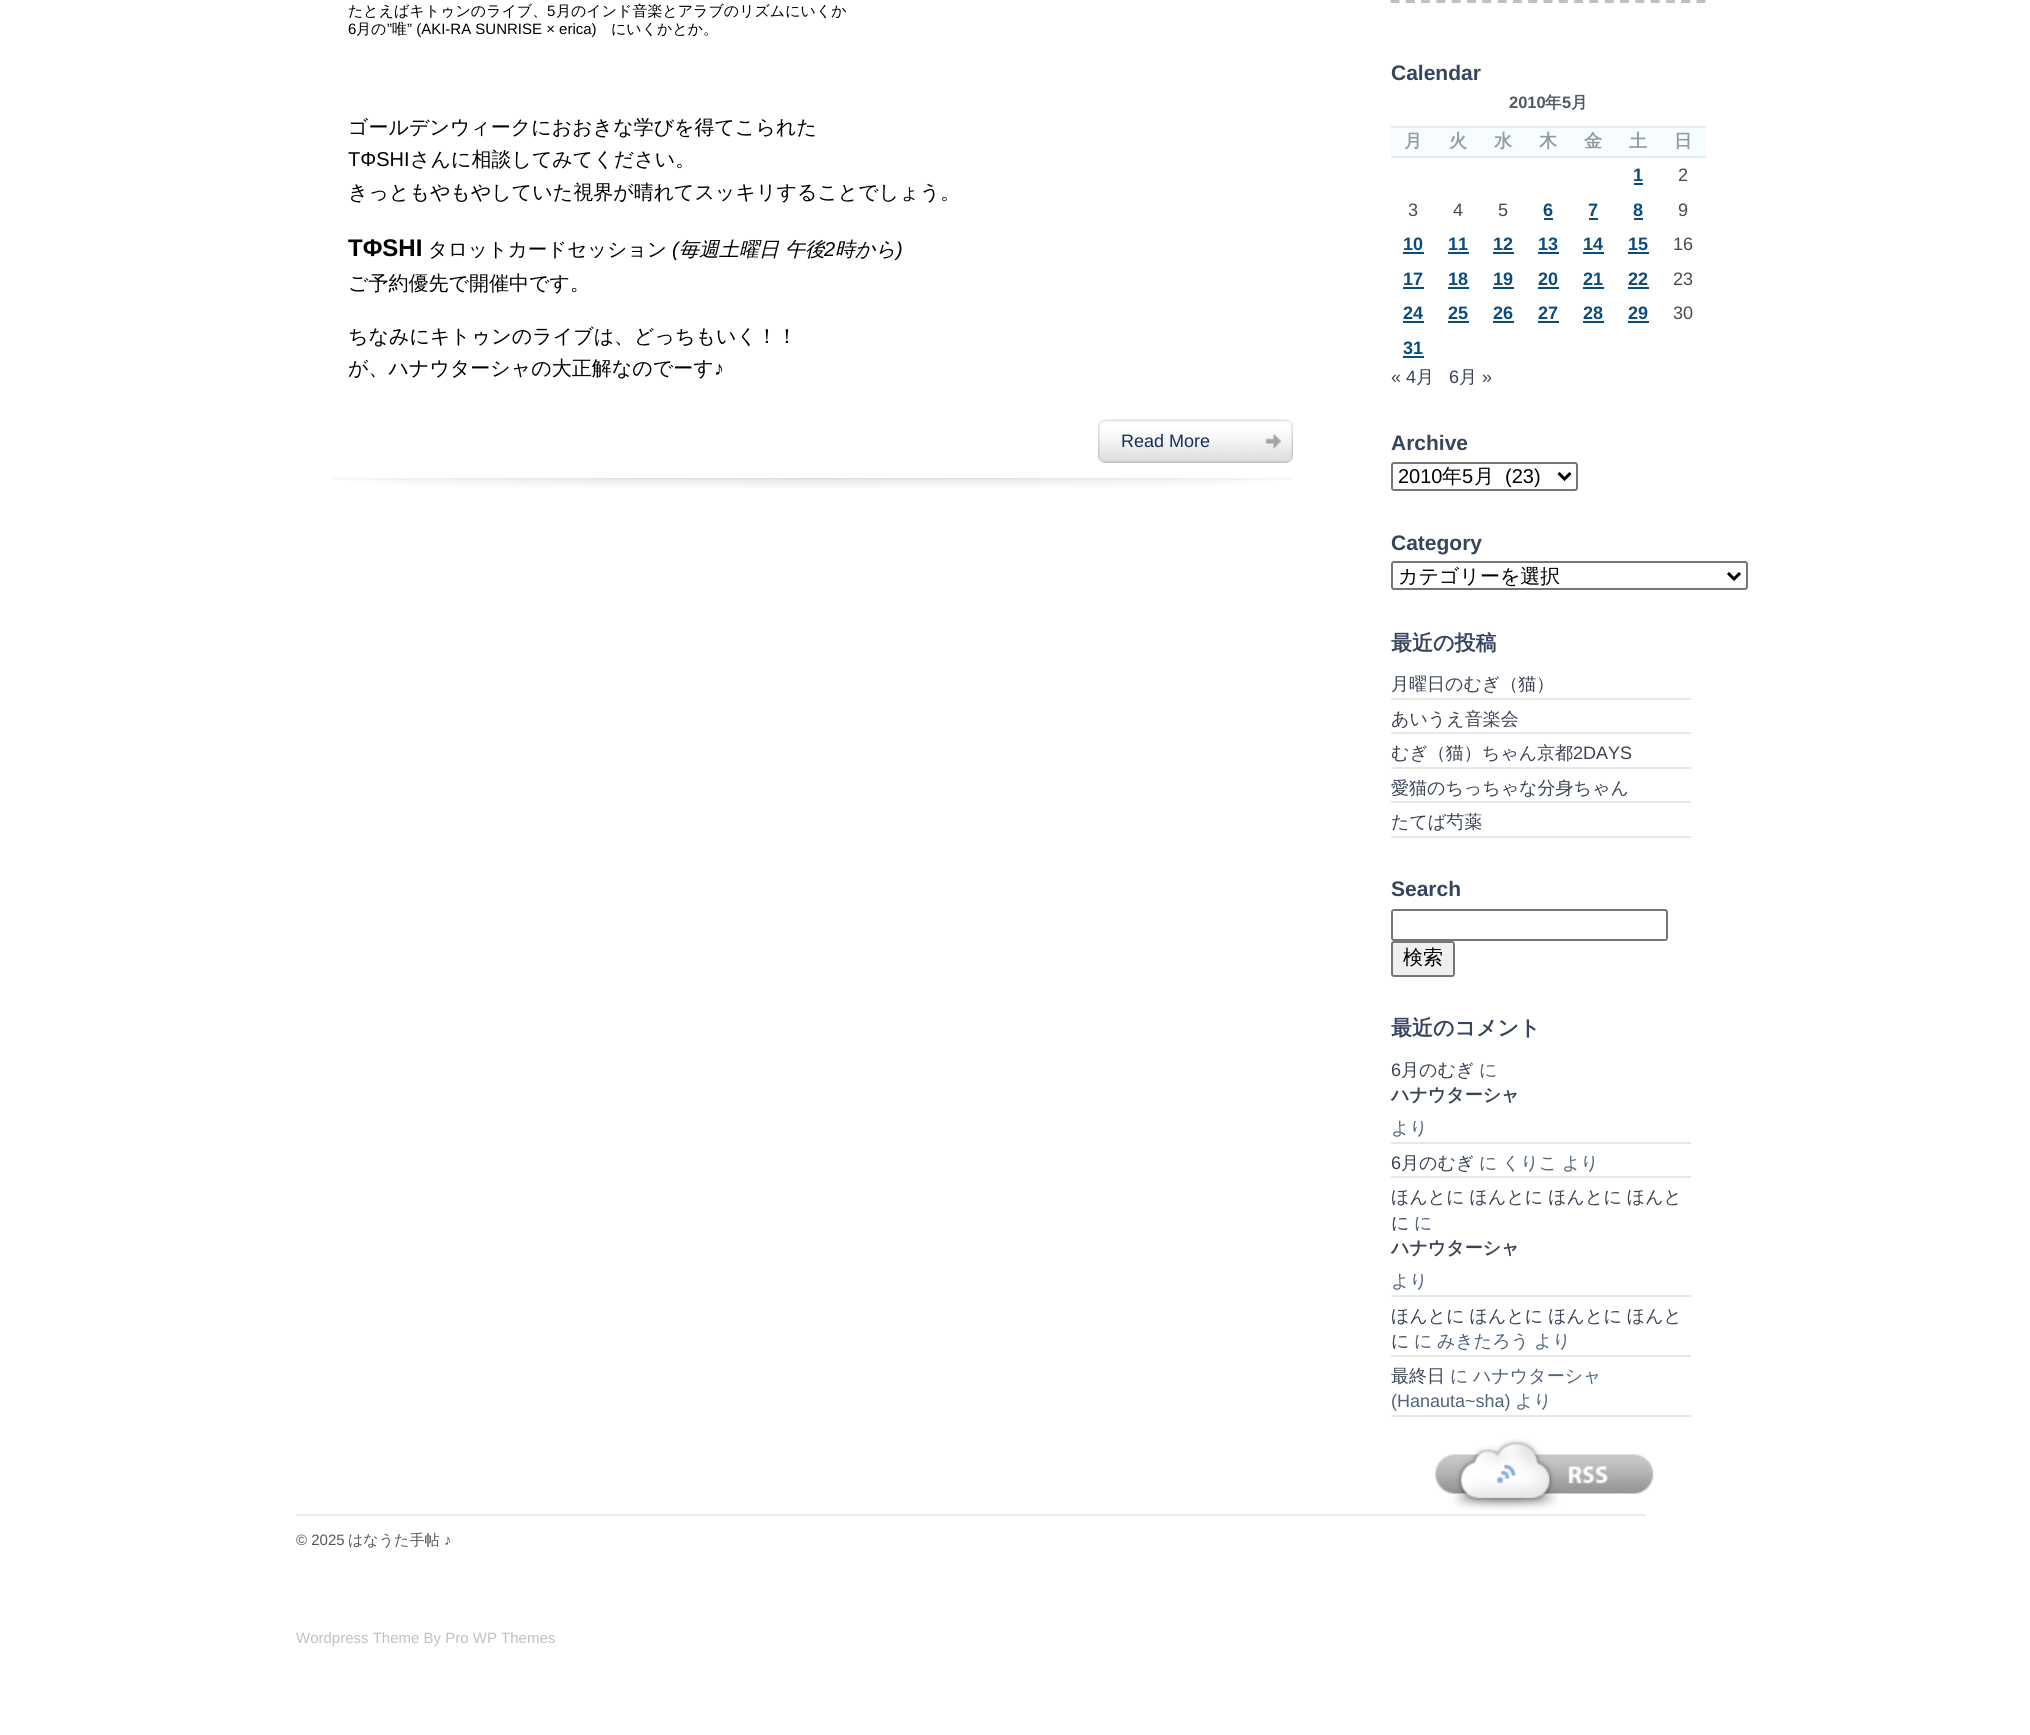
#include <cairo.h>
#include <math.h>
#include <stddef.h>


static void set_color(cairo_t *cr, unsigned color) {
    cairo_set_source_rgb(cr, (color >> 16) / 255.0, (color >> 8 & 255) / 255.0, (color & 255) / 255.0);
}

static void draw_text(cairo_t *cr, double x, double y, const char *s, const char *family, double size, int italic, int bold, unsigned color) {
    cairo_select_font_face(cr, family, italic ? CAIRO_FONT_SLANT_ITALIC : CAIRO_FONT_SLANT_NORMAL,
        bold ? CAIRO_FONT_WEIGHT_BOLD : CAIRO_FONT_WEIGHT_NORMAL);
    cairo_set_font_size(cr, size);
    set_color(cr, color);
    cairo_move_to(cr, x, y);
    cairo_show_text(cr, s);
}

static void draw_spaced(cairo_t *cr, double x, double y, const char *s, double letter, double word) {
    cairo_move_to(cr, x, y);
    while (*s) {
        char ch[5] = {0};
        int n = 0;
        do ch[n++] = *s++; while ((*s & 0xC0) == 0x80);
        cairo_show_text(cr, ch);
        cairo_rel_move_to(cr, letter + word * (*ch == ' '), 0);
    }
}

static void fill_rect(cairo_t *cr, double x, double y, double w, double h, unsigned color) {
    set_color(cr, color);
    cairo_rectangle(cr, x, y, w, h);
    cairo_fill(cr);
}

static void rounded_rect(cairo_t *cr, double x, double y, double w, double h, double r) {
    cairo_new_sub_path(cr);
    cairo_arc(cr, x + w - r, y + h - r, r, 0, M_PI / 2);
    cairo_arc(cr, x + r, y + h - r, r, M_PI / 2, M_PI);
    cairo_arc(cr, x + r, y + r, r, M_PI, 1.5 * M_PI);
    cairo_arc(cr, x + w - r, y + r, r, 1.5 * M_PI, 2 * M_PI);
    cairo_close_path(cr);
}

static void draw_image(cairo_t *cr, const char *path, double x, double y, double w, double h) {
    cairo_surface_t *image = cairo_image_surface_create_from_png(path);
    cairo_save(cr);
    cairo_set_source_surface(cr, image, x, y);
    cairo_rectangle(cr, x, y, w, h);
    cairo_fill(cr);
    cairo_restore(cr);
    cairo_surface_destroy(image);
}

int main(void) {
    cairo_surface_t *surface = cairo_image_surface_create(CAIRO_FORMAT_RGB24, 2030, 1735);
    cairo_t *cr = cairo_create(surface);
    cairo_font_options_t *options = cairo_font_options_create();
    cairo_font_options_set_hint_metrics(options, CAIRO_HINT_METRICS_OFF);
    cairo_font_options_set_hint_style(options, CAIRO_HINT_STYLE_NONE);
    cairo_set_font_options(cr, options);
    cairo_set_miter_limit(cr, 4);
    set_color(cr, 0xFFFFFF);
    cairo_paint(cr);
    draw_text(cr, 348, 16, "たとえばキトゥンのライブ、", "WenQuanYi Zen Hei Medium", 15, 0, 0, 0x000000);
    draw_text(cr, 547, 16, "5", "Liberation Sans", 15, 0, 0, 0x000000);
    draw_text(cr, 556, 16, "月のインド音楽とアラブのリズムにいくか", "WenQuanYi Zen Hei Medium", 15, 0, 0, 0x000000);
    draw_text(cr, 348, 34, "6", "Liberation Sans", 15, 0, 0, 0x000000);
    draw_text(cr, 356, 34, "月の", "WenQuanYi Zen Hei Medium", 15, 0, 0, 0x000000);
    draw_text(cr, 387, 34, "”", "Liberation Sans", 15, 0, 0, 0x000000);
    draw_text(cr, 392, 34, "唯", "WenQuanYi Zen Hei Medium", 15, 0, 0, 0x000000);
    draw_text(cr, 407, 34, "” (AKI-RA SUNRISE × erica)", "Liberation Sans", 15, 0, 0, 0x000000);
    draw_text(cr, 611, 34, "にいくかとか。", "WenQuanYi Zen Hei Medium", 15, 0, 0, 0x000000);
    draw_text(cr, 348, 134, "ゴールデンウィークにおおきな学びを得てこられた", "WenQuanYi Zen Hei Medium", 20, 0, 0, 0x000000);
    draw_text(cr, 348, 166, "TΦSHI", "Liberation Sans", 20, 0, 0, 0x000000);
    draw_text(cr, 410, 166, "さんに相談してみてください。", "WenQuanYi Zen Hei Medium", 20, 0, 0, 0x000000);
    draw_text(cr, 348, 199, "きっともやもやしていた視界が晴れてスッキリすることでしょう。", "WenQuanYi Zen Hei Medium", 20, 0, 0, 0x000000);
    draw_text(cr, 348, 256, "TΦSHI", "Liberation Sans", 24, 0, 1, 0x000000);
    draw_text(cr, 428, 256, "タロットカードセッション", "WenQuanYi Zen Hei Medium", 19.5, 0, 0, 0x000000);
    draw_text(cr, 672, 256, "(", "Liberation Sans", 20, 1, 0, 0x000000);
    draw_text(cr, 679, 256, "毎週土曜日 午後", "WenQuanYi Zen Hei Medium", 20, 1, 0, 0x000000);
    draw_text(cr, 824, 256, "2", "Liberation Sans", 20, 1, 0, 0x000000);
    draw_text(cr, 835, 256, "時から", "WenQuanYi Zen Hei Medium", 20, 1, 0, 0x000000);
    draw_text(cr, 896, 256, ")", "Liberation Sans", 20, 1, 0, 0x000000);
    draw_text(cr, 348, 290, "ご予約優先で開催中です。", "WenQuanYi Zen Hei Medium", 20, 0, 0, 0x000000);
    draw_text(cr, 348, 343, "ちなみにキトゥンのライブは、どっちもいく！！", "WenQuanYi Zen Hei Medium", 20, 0, 0, 0x000000);
    draw_text(cr, 348, 375, "が、ハナウターシャの大正解なのでーす", "WenQuanYi Zen Hei Medium", 20, 0, 0, 0x000000);
    draw_text(cr, 714, 375, "♪", "Liberation Sans", 20, 0, 0, 0x000000);
    draw_image(cr, "assets/img1.png", 333, 478, 960, 10);
    draw_image(cr, "assets/img2.png", 1098, 419, 195, 44);
    draw_text(cr, 1121, 447, "Read More", "Liberation Sans", 18, 0, 0, 0x133257);
    cairo_new_path(cr);
    cairo_move_to(cr, 1390.5, 1.5);
    cairo_line_to(cr, 1705.5, 1.5);
    set_color(cr, 0xC0C0C0);
    cairo_set_line_width(cr, 3);
    cairo_set_dash(cr, (double[]){9, 6.3}, 2, 0);
    cairo_stroke(cr);
    draw_text(cr, 1391, 80, "Calendar", "Liberation Sans", 21, 0, 1, 0x36445E);
    draw_text(cr, 1509, 108, "2010", "Liberation Sans", 16.5, 0, 1, 0x52595E);
    draw_text(cr, 1545, 108, "年", "WenQuanYi Zen Hei", 16.5, 0, 1, 0x52595E);
    draw_text(cr, 1562, 108, "5", "Liberation Sans", 16.5, 0, 1, 0x52595E);
    draw_text(cr, 1571, 108, "月", "WenQuanYi Zen Hei", 16.5, 0, 1, 0x52595E);
    fill_rect(cr, 1391, 128, 315, 28, 0xF6FCFF);
    fill_rect(cr, 1391, 126, 315, 2, 0xE5EDF1);
    fill_rect(cr, 1391, 156, 315, 2, 0xE5EDF1);
    draw_text(cr, 1404, 147, "月", "WenQuanYi Zen Hei", 18, 0, 1, 0x939C9E);
    draw_text(cr, 1449, 147, "火", "WenQuanYi Zen Hei", 18, 0, 1, 0x939C9E);
    draw_text(cr, 1494, 147, "水", "WenQuanYi Zen Hei", 18, 0, 1, 0x939C9E);
    draw_text(cr, 1539, 147, "木", "WenQuanYi Zen Hei", 18, 0, 1, 0x939C9E);
    draw_text(cr, 1584, 147, "金", "WenQuanYi Zen Hei", 18, 0, 1, 0x939C9E);
    draw_text(cr, 1629, 147, "土", "WenQuanYi Zen Hei", 18, 0, 1, 0x939C9E);
    draw_text(cr, 1674, 147, "日", "WenQuanYi Zen Hei", 18, 0, 1, 0x939C9E);
    draw_text(cr, 1633, 181, "1", "Liberation Sans", 18, 0, 1, 0x0B4B7D);
    fill_rect(cr, 1634, 183, 9, 2, 0x0B4B7D);
    draw_text(cr, 1678, 181, "2", "Liberation Sans", 18, 0, 0, 0x494949);
    draw_text(cr, 1408, 216, "3", "Liberation Sans", 18, 0, 0, 0x494949);
    draw_text(cr, 1453, 216, "4", "Liberation Sans", 18, 0, 0, 0x494949);
    draw_text(cr, 1498, 216, "5", "Liberation Sans", 18, 0, 0, 0x494949);
    draw_text(cr, 1543, 216, "6", "Liberation Sans", 18, 0, 1, 0x0B4B7D);
    fill_rect(cr, 1544, 218, 9, 2, 0x0B4B7D);
    draw_text(cr, 1588, 216, "7", "Liberation Sans", 18, 0, 1, 0x0B4B7D);
    fill_rect(cr, 1589, 218, 9, 2, 0x0B4B7D);
    draw_text(cr, 1633, 216, "8", "Liberation Sans", 18, 0, 1, 0x0B4B7D);
    fill_rect(cr, 1634, 218, 9, 2, 0x0B4B7D);
    draw_text(cr, 1678, 216, "9", "Liberation Sans", 18, 0, 0, 0x494949);
    draw_text(cr, 1403, 250, "10", "Liberation Sans", 18, 0, 1, 0x0B4B7D);
    fill_rect(cr, 1403, 252, 21, 2, 0x0B4B7D);
    draw_text(cr, 1448, 250, "11", "Liberation Sans", 18, 0, 1, 0x0B4B7D);
    fill_rect(cr, 1448, 252, 21, 2, 0x0B4B7D);
    draw_text(cr, 1493, 250, "12", "Liberation Sans", 18, 0, 1, 0x0B4B7D);
    fill_rect(cr, 1493, 252, 21, 2, 0x0B4B7D);
    draw_text(cr, 1538, 250, "13", "Liberation Sans", 18, 0, 1, 0x0B4B7D);
    fill_rect(cr, 1538, 252, 21, 2, 0x0B4B7D);
    draw_text(cr, 1583, 250, "14", "Liberation Sans", 18, 0, 1, 0x0B4B7D);
    fill_rect(cr, 1583, 252, 21, 2, 0x0B4B7D);
    draw_text(cr, 1628, 250, "15", "Liberation Sans", 18, 0, 1, 0x0B4B7D);
    fill_rect(cr, 1628, 252, 21, 2, 0x0B4B7D);
    draw_text(cr, 1673, 250, "16", "Liberation Sans", 18, 0, 0, 0x494949);
    draw_text(cr, 1403, 285, "17", "Liberation Sans", 18, 0, 1, 0x0B4B7D);
    fill_rect(cr, 1403, 287, 21, 2, 0x0B4B7D);
    draw_text(cr, 1448, 285, "18", "Liberation Sans", 18, 0, 1, 0x0B4B7D);
    fill_rect(cr, 1448, 287, 21, 2, 0x0B4B7D);
    draw_text(cr, 1493, 285, "19", "Liberation Sans", 18, 0, 1, 0x0B4B7D);
    fill_rect(cr, 1493, 287, 21, 2, 0x0B4B7D);
    draw_text(cr, 1538, 285, "20", "Liberation Sans", 18, 0, 1, 0x0B4B7D);
    fill_rect(cr, 1538, 287, 21, 2, 0x0B4B7D);
    draw_text(cr, 1583, 285, "21", "Liberation Sans", 18, 0, 1, 0x0B4B7D);
    fill_rect(cr, 1583, 287, 21, 2, 0x0B4B7D);
    draw_text(cr, 1628, 285, "22", "Liberation Sans", 18, 0, 1, 0x0B4B7D);
    fill_rect(cr, 1628, 287, 21, 2, 0x0B4B7D);
    draw_text(cr, 1673, 285, "23", "Liberation Sans", 18, 0, 0, 0x494949);
    draw_text(cr, 1403, 319, "24", "Liberation Sans", 18, 0, 1, 0x0B4B7D);
    fill_rect(cr, 1403, 321, 21, 2, 0x0B4B7D);
    draw_text(cr, 1448, 319, "25", "Liberation Sans", 18, 0, 1, 0x0B4B7D);
    fill_rect(cr, 1448, 321, 21, 2, 0x0B4B7D);
    draw_text(cr, 1493, 319, "26", "Liberation Sans", 18, 0, 1, 0x0B4B7D);
    fill_rect(cr, 1493, 321, 21, 2, 0x0B4B7D);
    draw_text(cr, 1538, 319, "27", "Liberation Sans", 18, 0, 1, 0x0B4B7D);
    fill_rect(cr, 1538, 321, 21, 2, 0x0B4B7D);
    draw_text(cr, 1583, 319, "28", "Liberation Sans", 18, 0, 1, 0x0B4B7D);
    fill_rect(cr, 1583, 321, 21, 2, 0x0B4B7D);
    draw_text(cr, 1628, 319, "29", "Liberation Sans", 18, 0, 1, 0x0B4B7D);
    fill_rect(cr, 1628, 321, 21, 2, 0x0B4B7D);
    draw_text(cr, 1673, 319, "30", "Liberation Sans", 18, 0, 0, 0x494949);
    draw_text(cr, 1403, 354, "31", "Liberation Sans", 18, 0, 1, 0x0B4B7D);
    fill_rect(cr, 1403, 356, 21, 2, 0x0B4B7D);
    draw_text(cr, 1391, 383, "« 4", "Liberation Sans", 18, 0, 0, 0x3A4353);
    draw_text(cr, 1416, 383, "月", "WenQuanYi Zen Hei Medium", 18, 0, 0, 0x3A4353);
    draw_text(cr, 1449, 383, "6", "Liberation Sans", 18, 0, 0, 0x3A4353);
    draw_text(cr, 1459, 383, "月", "WenQuanYi Zen Hei Medium", 18, 0, 0, 0x3A4353);
    draw_text(cr, 1482, 383, "»", "Liberation Sans", 18, 0, 0, 0x3A4353);
    draw_text(cr, 1391, 450, "Archive", "Liberation Sans", 21, 0, 1, 0x36445E);
    rounded_rect(cr, 1392, 463, 185, 27, 2);
    set_color(cr, 0x767676);
    cairo_set_line_width(cr, 2);
    cairo_set_dash(cr, NULL, 0, 0);
    cairo_stroke(cr);
    cairo_new_path(cr);
    cairo_move_to(cr, 1558.5, 473);
    cairo_line_to(cr, 1564.5, 479);
    cairo_line_to(cr, 1570.5, 473);
    set_color(cr, 0x000000);
    cairo_set_line_width(cr, 3);
    cairo_stroke(cr);
    draw_text(cr, 1398, 483, "2010", "Liberation Sans", 20, 0, 0, 0x000000);
    draw_text(cr, 1442, 483, "年", "WenQuanYi Zen Hei Medium", 20, 0, 0, 0x000000);
    draw_text(cr, 1462, 483, "5", "Liberation Sans", 20, 0, 0, 0x000000);
    draw_text(cr, 1474, 483, "月", "WenQuanYi Zen Hei Medium", 20, 0, 0, 0x000000);
    draw_text(cr, 1505, 483, "(23)", "Liberation Sans", 20, 0, 0, 0x000000);
    draw_text(cr, 1391, 550, "Category", "Liberation Sans", 21, 0, 1, 0x36445E);
    rounded_rect(cr, 1392, 562, 355, 27, 2);
    set_color(cr, 0x767676);
    cairo_set_line_width(cr, 2);
    cairo_stroke(cr);
    cairo_new_path(cr);
    cairo_move_to(cr, 1728, 573);
    cairo_line_to(cr, 1734, 579);
    cairo_line_to(cr, 1740, 573);
    set_color(cr, 0x000000);
    cairo_set_line_width(cr, 3);
    cairo_stroke(cr);
    draw_text(cr, 1398, 583, "カテゴリーを選択", "WenQuanYi Zen Hei Medium", 20, 0, 0, 0x000000);
    draw_text(cr, 1391, 650, "最近の投稿", "WenQuanYi Zen Hei", 21, 0, 1, 0x36445E);
    fill_rect(cr, 1391, 698, 300, 2, 0xE7E7E7);
    draw_text(cr, 1391, 690, "月曜日のむぎ（猫）", "WenQuanYi Zen Hei Medium", 18, 0, 0, 0x3A4353);
    fill_rect(cr, 1391, 732, 300, 2, 0xE7E7E7);
    draw_text(cr, 1391, 725, "あいうえ音楽会", "WenQuanYi Zen Hei Medium", 18, 0, 0, 0x3A4353);
    fill_rect(cr, 1391, 767, 300, 2, 0xE7E7E7);
    draw_text(cr, 1391, 759, "むぎ（猫）ちゃん京都", "WenQuanYi Zen Hei Medium", 18, 0, 0, 0x3A4353);
    draw_text(cr, 1573, 759, "2DAYS", "Liberation Sans", 18, 0, 0, 0x3A4353);
    fill_rect(cr, 1391, 801, 300, 2, 0xE7E7E7);
    draw_text(cr, 1391, 794, "愛猫のちっちゃな分身ちゃん", "WenQuanYi Zen Hei Medium", 18, 0, 0, 0x3A4353);
    fill_rect(cr, 1391, 836, 300, 2, 0xE7E7E7);
    draw_text(cr, 1391, 828, "たてば芍薬", "WenQuanYi Zen Hei Medium", 18, 0, 0, 0x3A4353);
    draw_text(cr, 1391, 896, "Search", "Liberation Sans", 21, 0, 1, 0x36445E);
    rounded_rect(cr, 1392, 910, 275, 30, 2);
    set_color(cr, 0x767676);
    cairo_set_line_width(cr, 2);
    cairo_stroke(cr);
    set_color(cr, 0xEFEFEF);
    rounded_rect(cr, 1392, 942, 62, 34, 2);
    cairo_fill_preserve(cr);
    set_color(cr, 0x767676);
    cairo_stroke(cr);
    draw_text(cr, 1403, 964, "検索", "WenQuanYi Zen Hei Medium", 20, 0, 0, 0x000000);
    draw_text(cr, 1391, 1035, "最近のコメント", "WenQuanYi Zen Hei", 21, 0, 1, 0x36445E);
    fill_rect(cr, 1391, 1142, 300, 2, 0xE7E7E7);
    draw_text(cr, 1391, 1076, "6", "Liberation Sans", 18, 0, 0, 0x3A4353);
    draw_text(cr, 1401, 1076, "月のむぎ", "WenQuanYi Zen Hei Medium", 18, 0, 0, 0x3A4353);
    draw_text(cr, 1479, 1076, "に", "WenQuanYi Zen Hei Medium", 18, 0, 0, 0x4F637B);
    draw_text(cr, 1391, 1101, "ハナウターシャ", "WenQuanYi Zen Hei", 18, 0, 1, 0x3A4353);
    draw_text(cr, 1391, 1134, "より", "WenQuanYi Zen Hei Medium", 18, 0, 0, 0x4F637B);
    fill_rect(cr, 1391, 1176, 300, 2, 0xE7E7E7);
    draw_text(cr, 1391, 1169, "6", "Liberation Sans", 18, 0, 0, 0x3A4353);
    draw_text(cr, 1401, 1169, "月のむぎ", "WenQuanYi Zen Hei Medium", 18, 0, 0, 0x3A4353);
    draw_text(cr, 1479, 1169, "に", "WenQuanYi Zen Hei Medium", 18, 0, 0, 0x4F637B);
    draw_text(cr, 1502, 1169, "くりこ", "WenQuanYi Zen Hei Medium", 18, 0, 0, 0x4F637B);
    draw_text(cr, 1562, 1169, "より", "WenQuanYi Zen Hei Medium", 18, 0, 0, 0x4F637B);
    fill_rect(cr, 1391, 1295, 300, 2, 0xE7E7E7);
    set_color(cr, 0x3A4353);
    draw_spaced(cr, 1391, 1203, "ほんとに ほんとに ほんとに ほんと", 0, -0.5);
    draw_text(cr, 1391, 1229, "に", "WenQuanYi Zen Hei Medium", 18, 0, 0, 0x3A4353);
    draw_text(cr, 1414, 1229, "に", "WenQuanYi Zen Hei Medium", 18, 0, 0, 0x4F637B);
    draw_text(cr, 1391, 1254, "ハナウターシャ", "WenQuanYi Zen Hei", 18, 0, 1, 0x3A4353);
    draw_text(cr, 1391, 1287, "より", "WenQuanYi Zen Hei Medium", 18, 0, 0, 0x4F637B);
    fill_rect(cr, 1391, 1355, 300, 2, 0xE7E7E7);
    set_color(cr, 0x3A4353);
    draw_spaced(cr, 1391, 1322, "ほんとに ほんとに ほんとに ほんと", 0, -0.5);
    draw_text(cr, 1391, 1347, "に", "WenQuanYi Zen Hei Medium", 18, 0, 0, 0x3A4353);
    draw_text(cr, 1414, 1347, "に", "WenQuanYi Zen Hei Medium", 18, 0, 0, 0x4F637B);
    draw_text(cr, 1437, 1347, "みきたろう", "WenQuanYi Zen Hei Medium", 18, 0, 0, 0x4F637B);
    draw_text(cr, 1534, 1347, "より", "WenQuanYi Zen Hei Medium", 18, 0, 0, 0x4F637B);
    fill_rect(cr, 1391, 1415, 300, 2, 0xE7E7E7);
    draw_text(cr, 1391, 1382, "最終日", "WenQuanYi Zen Hei Medium", 18, 0, 0, 0x3A4353);
    draw_text(cr, 1450, 1382, "に", "WenQuanYi Zen Hei Medium", 18, 0, 0, 0x4F637B);
    draw_text(cr, 1473, 1382, "ハナウターシャ", "WenQuanYi Zen Hei Medium", 18, 0, 0, 0x4F637B);
    draw_text(cr, 1391, 1407, "(Hanauta~sha)", "Liberation Sans", 18, 0, 0, 0x4F637B);
    draw_text(cr, 1515, 1407, "より", "WenQuanYi Zen Hei Medium", 18, 0, 0, 0x4F637B);
    draw_image(cr, "assets/img3.png", 1435, 1439, 219, 71);
    fill_rect(cr, 296, 1514, 1350, 2, 0xECECEC);
    draw_text(cr, 296, 1545, "© 2025", "Liberation Sans", 15, 0, 0, 0x565656);
    draw_text(cr, 348, 1545, "はなうた手帖", "WenQuanYi Zen Hei Medium", 15, 0, 0, 0x565656);
    draw_text(cr, 444, 1545, "♪", "Liberation Sans", 15, 0, 0, 0x565656);
    draw_text(cr, 296, 1643, "Wordpress Theme By Pro WP Themes", "Liberation Sans", 15, 0, 0, 0xC0C0C0);
    cairo_surface_write_to_png(surface, "output.png");
    cairo_font_options_destroy(options);
    cairo_destroy(cr);
    cairo_surface_destroy(surface);
    return 0;
}
